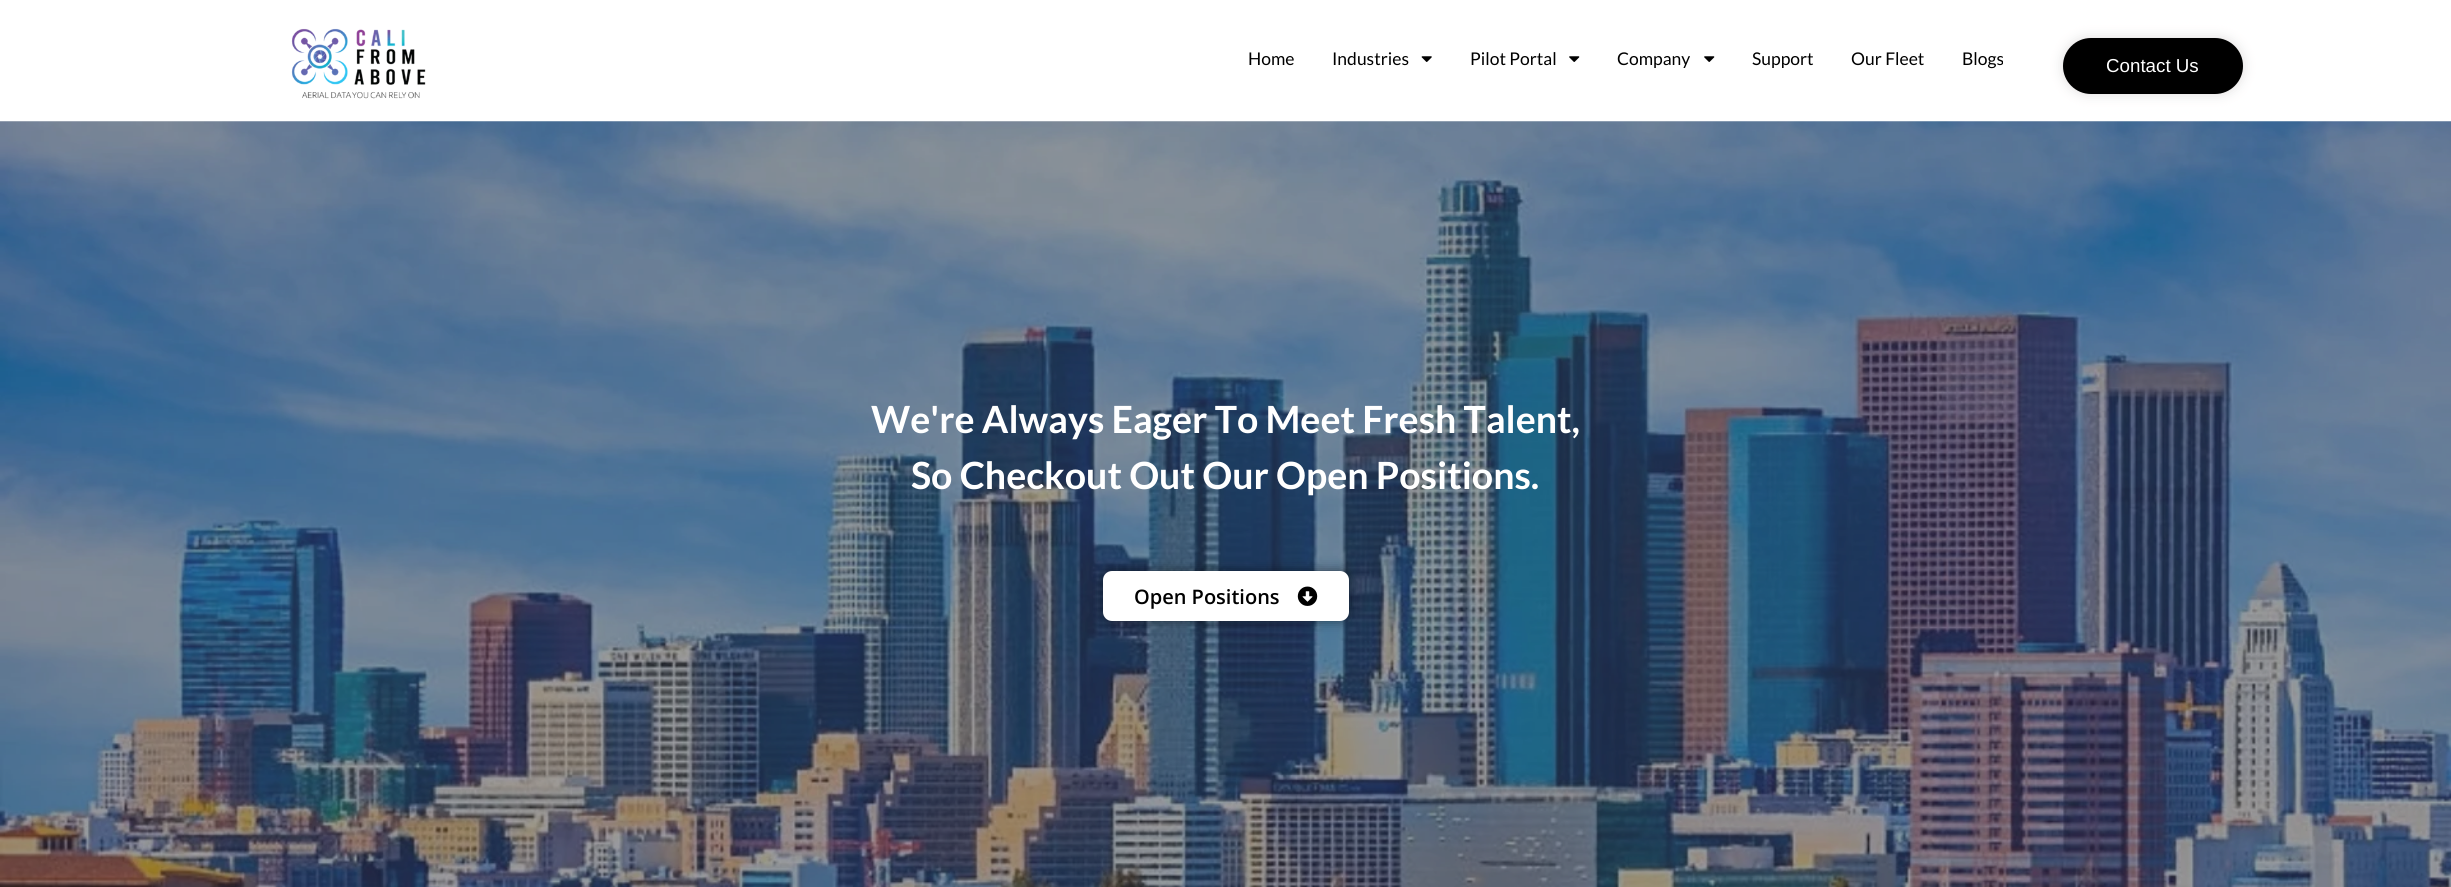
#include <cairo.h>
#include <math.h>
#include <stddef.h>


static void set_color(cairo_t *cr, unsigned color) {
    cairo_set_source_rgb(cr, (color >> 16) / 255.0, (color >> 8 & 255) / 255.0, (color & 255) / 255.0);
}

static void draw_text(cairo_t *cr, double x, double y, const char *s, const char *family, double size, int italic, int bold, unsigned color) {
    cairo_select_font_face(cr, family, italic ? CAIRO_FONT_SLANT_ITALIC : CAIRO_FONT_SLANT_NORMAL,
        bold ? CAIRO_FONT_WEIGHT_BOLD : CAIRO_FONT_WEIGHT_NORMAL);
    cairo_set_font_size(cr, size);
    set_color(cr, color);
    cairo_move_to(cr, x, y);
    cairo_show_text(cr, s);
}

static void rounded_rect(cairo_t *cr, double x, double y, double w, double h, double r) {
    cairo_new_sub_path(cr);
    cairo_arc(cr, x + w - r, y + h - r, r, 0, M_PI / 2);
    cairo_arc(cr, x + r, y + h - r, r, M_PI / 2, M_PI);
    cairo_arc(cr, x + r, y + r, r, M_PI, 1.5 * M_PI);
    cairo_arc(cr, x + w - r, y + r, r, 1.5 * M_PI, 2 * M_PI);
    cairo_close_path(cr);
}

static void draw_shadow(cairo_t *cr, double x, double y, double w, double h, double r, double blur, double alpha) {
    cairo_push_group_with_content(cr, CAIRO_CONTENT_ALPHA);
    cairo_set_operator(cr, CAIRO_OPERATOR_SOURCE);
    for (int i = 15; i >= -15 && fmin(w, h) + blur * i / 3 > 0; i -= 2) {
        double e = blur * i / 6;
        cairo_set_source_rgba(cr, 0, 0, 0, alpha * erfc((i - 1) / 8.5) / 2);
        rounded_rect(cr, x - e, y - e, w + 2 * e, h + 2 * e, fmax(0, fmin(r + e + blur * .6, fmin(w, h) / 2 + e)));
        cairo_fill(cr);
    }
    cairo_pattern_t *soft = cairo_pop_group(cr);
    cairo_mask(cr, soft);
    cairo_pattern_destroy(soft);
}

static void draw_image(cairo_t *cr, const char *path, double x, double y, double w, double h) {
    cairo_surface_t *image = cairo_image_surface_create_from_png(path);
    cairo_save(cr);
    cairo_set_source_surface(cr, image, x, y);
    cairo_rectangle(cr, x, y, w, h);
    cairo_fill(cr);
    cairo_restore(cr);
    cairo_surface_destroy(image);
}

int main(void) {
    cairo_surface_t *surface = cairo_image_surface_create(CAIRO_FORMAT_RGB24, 2451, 887);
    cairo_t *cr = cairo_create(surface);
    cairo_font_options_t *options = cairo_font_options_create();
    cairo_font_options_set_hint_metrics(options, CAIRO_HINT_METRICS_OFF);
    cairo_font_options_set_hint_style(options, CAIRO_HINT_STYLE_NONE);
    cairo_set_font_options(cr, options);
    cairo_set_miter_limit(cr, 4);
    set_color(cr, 0xFFFFFF);
    cairo_paint(cr);
    draw_image(cr, "assets/img1.png", 291, 28, 135, 71);
    draw_text(cr, 1248, 65, "Home", "Lato", 17.5, 0, 0, 0x000000);
    draw_text(cr, 1332, 65, "Industries", "Lato", 17.5, 0, 0, 0x000000);
    draw_image(cr, "assets/img2.png", 1421, 56, 11, 6);
    draw_text(cr, 1470, 65, "Pilot Portal", "Lato", 17.5, 0, 0, 0x000000);
    draw_image(cr, "assets/img3.png", 1569, 56, 11, 6);
    draw_text(cr, 1617, 65, "Company", "Lato", 17.5, 0, 0, 0x000000);
    draw_image(cr, "assets/img3.png", 1704, 56, 11, 6);
    draw_text(cr, 1752, 65, "Support", "Lato", 17.5, 0, 0, 0x000000);
    draw_text(cr, 1851, 65, "Our Fleet", "Lato", 17.5, 0, 0, 0x000000);
    draw_text(cr, 1962, 65, "Blogs", "Lato", 17.5, 0, 0, 0x000000);
    set_color(cr, 0xC1BCBC);
    draw_shadow(cr, 2063, 38, 180, 56, 28, 6, 0.5);
    set_color(cr, 0x000000);
    rounded_rect(cr, 2063, 38, 180, 56, 28);
    cairo_fill(cr);
    draw_text(cr, 2106, 72, "Contact Us", "Liberation Sans", 18.75, 0, 0, 0xFFFFFF);
    draw_image(cr, "assets/img4.png", 0, 121, 2451, 766);
    draw_text(cr, 871, 433, "We're Always Eager To Meet Fresh Talent,", "Lato", 37.5, 0, 1, 0xFFFFFF);
    draw_text(cr, 911, 489, "So Checkout Out Our Open Positions.", "Lato", 37.5, 0, 1, 0xFFFFFF);
    set_color(cr, 0x000000);
    draw_shadow(cr, 1103, 571, 246, 50, 9, 6, 0.5);
    set_color(cr, 0xFFFFFF);
    rounded_rect(cr, 1103, 571, 246, 50, 9);
    cairo_fill(cr);
    draw_text(cr, 1134, 604, "Open Positions", "Open Sans SemiBold", 20, 0, 0, 0x000000);
    draw_image(cr, "assets/img5.png", 1297, 586, 21, 20);
    cairo_surface_write_to_png(surface, "output.png");
    cairo_font_options_destroy(options);
    cairo_destroy(cr);
    cairo_surface_destroy(surface);
    return 0;
}
